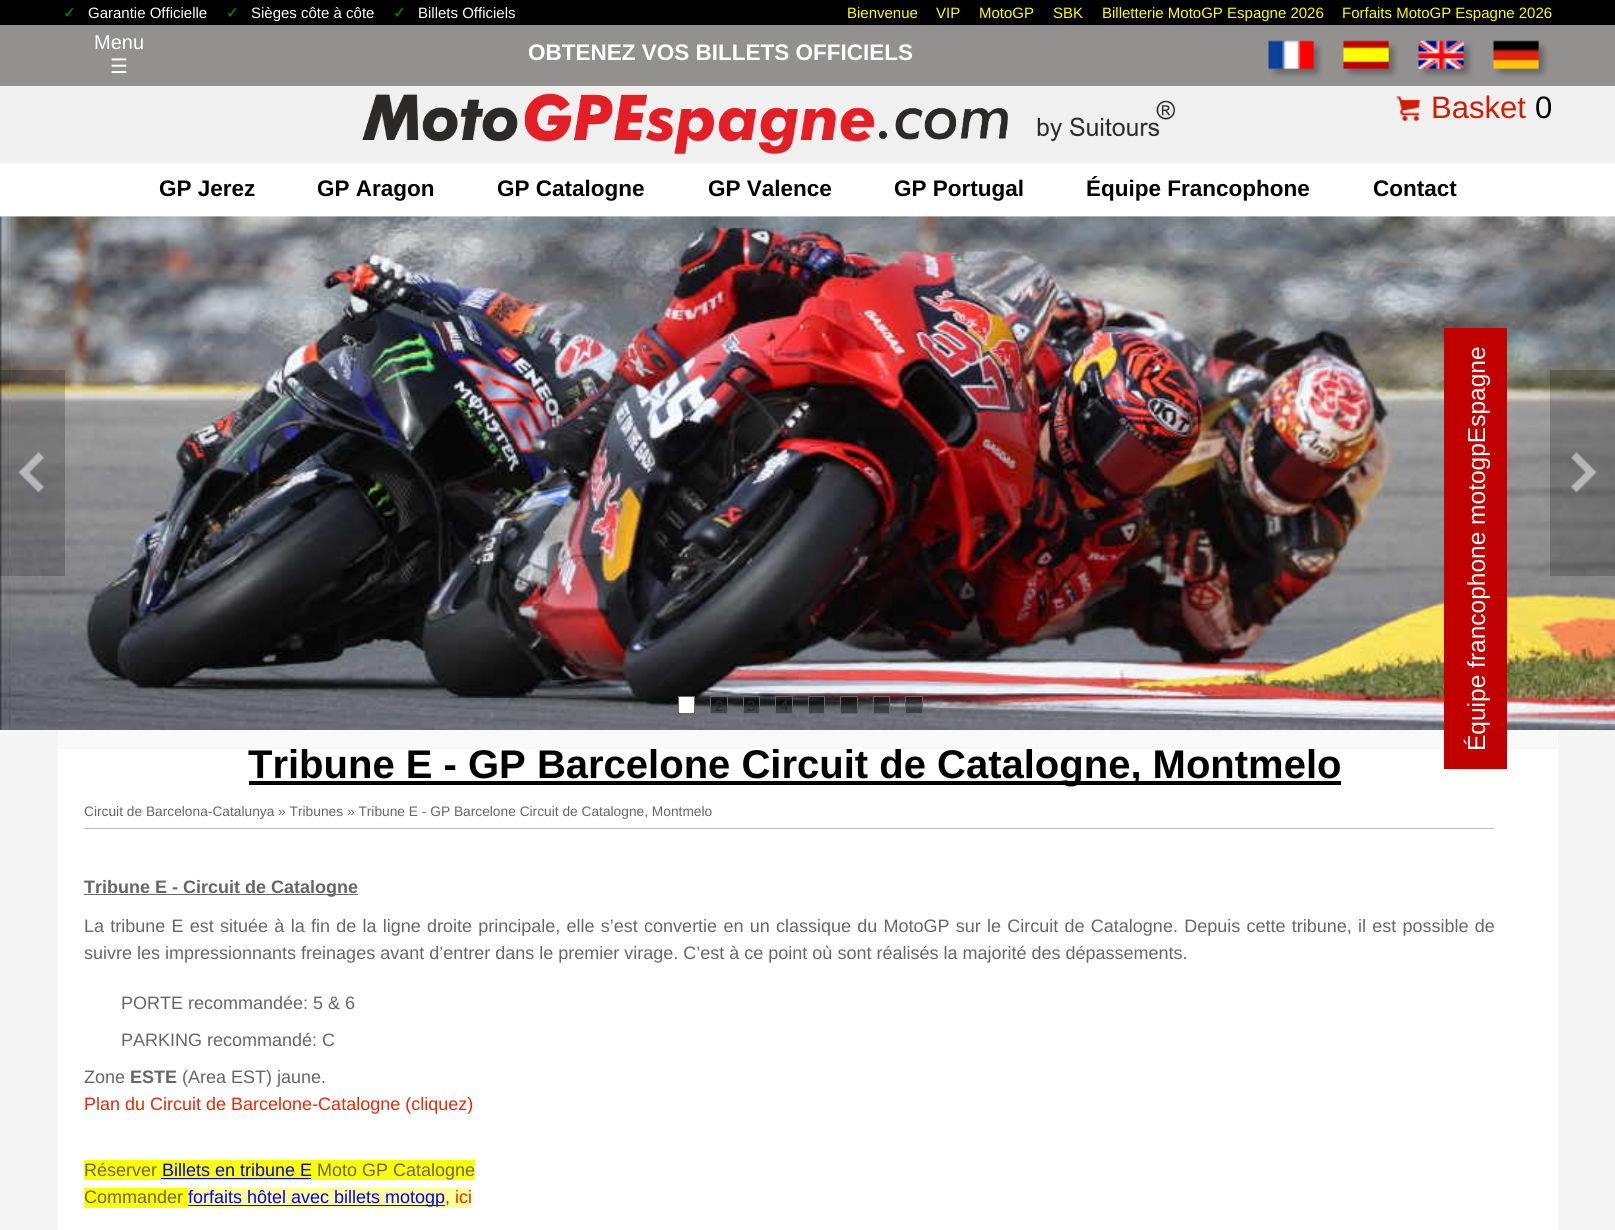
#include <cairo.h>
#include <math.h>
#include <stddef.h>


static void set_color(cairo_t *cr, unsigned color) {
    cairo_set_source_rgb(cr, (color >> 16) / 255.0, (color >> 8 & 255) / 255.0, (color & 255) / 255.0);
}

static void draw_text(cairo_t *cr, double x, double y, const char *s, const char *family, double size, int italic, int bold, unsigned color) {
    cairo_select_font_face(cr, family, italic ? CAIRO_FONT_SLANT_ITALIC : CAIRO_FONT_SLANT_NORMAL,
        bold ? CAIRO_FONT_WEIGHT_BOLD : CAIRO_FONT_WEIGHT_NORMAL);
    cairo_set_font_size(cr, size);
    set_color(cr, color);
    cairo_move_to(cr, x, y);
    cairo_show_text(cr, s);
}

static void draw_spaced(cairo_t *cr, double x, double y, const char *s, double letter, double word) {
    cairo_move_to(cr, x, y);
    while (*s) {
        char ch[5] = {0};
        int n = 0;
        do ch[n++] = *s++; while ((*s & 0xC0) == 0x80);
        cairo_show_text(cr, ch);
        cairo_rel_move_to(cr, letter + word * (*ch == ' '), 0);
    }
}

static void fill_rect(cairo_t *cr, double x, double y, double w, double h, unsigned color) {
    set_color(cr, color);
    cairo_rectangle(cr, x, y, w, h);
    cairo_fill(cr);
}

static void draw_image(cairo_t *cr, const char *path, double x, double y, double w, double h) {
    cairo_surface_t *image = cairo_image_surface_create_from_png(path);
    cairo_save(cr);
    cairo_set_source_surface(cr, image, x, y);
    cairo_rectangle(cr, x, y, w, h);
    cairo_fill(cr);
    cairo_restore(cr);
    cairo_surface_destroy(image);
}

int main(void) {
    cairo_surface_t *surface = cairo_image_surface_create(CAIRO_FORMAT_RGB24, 1615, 1230);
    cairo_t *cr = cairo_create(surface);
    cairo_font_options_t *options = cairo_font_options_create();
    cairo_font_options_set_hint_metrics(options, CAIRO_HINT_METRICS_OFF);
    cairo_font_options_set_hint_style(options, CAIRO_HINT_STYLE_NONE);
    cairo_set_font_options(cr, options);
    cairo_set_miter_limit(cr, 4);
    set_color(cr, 0xF5F5F5);
    cairo_paint(cr);
    fill_rect(cr, 0, 0, 1615, 25, 0x000000);
    draw_text(cr, 63, 18, "✓", "DejaVu Sans", 15, 0, 1, 0x008000);
    draw_text(cr, 88, 18, "Garantie Officielle", "Liberation Sans", 15, 0, 0, 0xFFFFFF);
    draw_text(cr, 226, 18, "✓", "DejaVu Sans", 15, 0, 1, 0x008000);
    draw_text(cr, 251, 18, "Sièges côte à côte", "Liberation Sans", 15, 0, 0, 0xFFFFFF);
    draw_text(cr, 393, 18, "✓", "DejaVu Sans", 15, 0, 1, 0x008000);
    draw_text(cr, 418, 18, "Billets Officiels", "Liberation Sans", 15, 0, 0, 0xFFFFFF);
    draw_text(cr, 847, 18, "Bienvenue", "Liberation Sans", 15, 0, 0, 0xFFFF00);
    draw_text(cr, 936, 18, "VIP", "Liberation Sans", 15, 0, 0, 0xFFFF00);
    draw_text(cr, 979, 18, "MotoGP", "Liberation Sans", 15, 0, 0, 0xFFFF00);
    draw_text(cr, 1053, 18, "SBK", "Liberation Sans", 15, 0, 0, 0xFFFF00);
    draw_text(cr, 1102, 18, "Billetterie MotoGP Espagne 2026", "Liberation Sans", 15, 0, 0, 0xFFFF00);
    draw_text(cr, 1342, 18, "Forfaits MotoGP Espagne 2026", "Liberation Sans", 15, 0, 0, 0xFFFF00);
    fill_rect(cr, 0, 25, 1615, 61, 0x939090);
    draw_text(cr, 94, 49, "Menu", "Liberation Sans", 20, 0, 0, 0xFFFFFF);
    draw_text(cr, 110, 73, "☰", "DejaVu Sans", 20, 0, 0, 0xFFFFFF);
    draw_text(cr, 528, 60, "OBTENEZ VOS BILLETS OFFICIELS", "Liberation Sans", 22.5, 0, 1, 0xFFFFFF);
    draw_image(cr, "assets/img1.png", 1268, 40, 55, 38);
    draw_image(cr, "assets/img2.png", 1343, 40, 55, 38);
    draw_image(cr, "assets/img3.png", 1418, 40, 55, 38);
    draw_image(cr, "assets/img4.png", 1493, 40, 55, 38);
    fill_rect(cr, 0, 86, 1615, 77, 0xF0F0F0);
    draw_image(cr, "assets/img5.png", 362, 93, 813, 61);
    draw_image(cr, "assets/img6.png", 1396, 96, 24, 26);
    draw_text(cr, 1431, 118, "Basket", "Liberation Sans", 31, 0, 0, 0xD01C02);
    draw_text(cr, 1535, 118, "0", "Liberation Sans", 31, 0, 0, 0x000000);
    fill_rect(cr, 0, 163, 1615, 53, 0xFFFFFF);
    draw_text(cr, 159, 196, "GP Jerez", "Liberation Sans", 22.5, 0, 1, 0x000000);
    draw_text(cr, 317, 196, "GP Aragon", "Liberation Sans", 22.5, 0, 1, 0x000000);
    draw_text(cr, 497, 196, "GP Catalogne", "Liberation Sans", 22.5, 0, 1, 0x000000);
    draw_text(cr, 708, 196, "GP Valence", "Liberation Sans", 22.5, 0, 1, 0x000000);
    draw_text(cr, 894, 196, "GP Portugal", "Liberation Sans", 22.5, 0, 1, 0x000000);
    draw_text(cr, 1086, 196, "Équipe Francophone", "Liberation Sans", 22.5, 0, 1, 0x000000);
    draw_text(cr, 1373, 196, "Contact", "Liberation Sans", 22.5, 0, 1, 0x000000);
    draw_image(cr, "assets/img7.png", 0, 216, 1615, 514);
    cairo_set_source_rgba(cr, 0, 0, 0, 0.2);
    cairo_rectangle(cr, 0, 370, 65, 206);
    cairo_fill(cr);
    draw_image(cr, "assets/img8.png", 18, 452, 26, 41);
    cairo_rectangle(cr, 1550, 370, 65, 206);
    cairo_fill(cr);
    draw_image(cr, "assets/img9.png", 1571, 452, 26, 41);
    set_color(cr, 0xFFFFFF);
    cairo_rectangle(cr, 678.5, 696.5, 16, 17);
    cairo_fill_preserve(cr);
    set_color(cr, 0x666666);
    cairo_set_line_width(cr, 1);
    cairo_stroke(cr);
    cairo_set_source_rgba(cr, 0, 0, 0, 0.4);
    cairo_rectangle(cr, 710.5, 696.5, 17, 17);
    cairo_fill_preserve(cr);
    set_color(cr, 0x666666);
    cairo_stroke(cr);
    draw_text(cr, 715, 711, "2", "Liberation Sans", 15, 0, 0, 0x2B2B2E);
    cairo_set_source_rgba(cr, 0, 0, 0, 0.4);
    cairo_rectangle(cr, 743.5, 696.5, 16, 17);
    cairo_fill_preserve(cr);
    set_color(cr, 0x666666);
    cairo_stroke(cr);
    draw_text(cr, 747, 711, "3", "Liberation Sans", 15, 0, 0, 0x2B2B2E);
    cairo_set_source_rgba(cr, 0, 0, 0, 0.4);
    cairo_rectangle(cr, 775.5, 696.5, 17, 17);
    cairo_fill_preserve(cr);
    set_color(cr, 0x666666);
    cairo_stroke(cr);
    draw_text(cr, 780, 711, "4", "Liberation Sans", 15, 0, 0, 0x2B2B2E);
    cairo_set_source_rgba(cr, 0, 0, 0, 0.4);
    cairo_rectangle(cr, 808.5, 696.5, 16, 17);
    cairo_fill_preserve(cr);
    set_color(cr, 0x666666);
    cairo_stroke(cr);
    cairo_set_source_rgba(cr, 0, 0, 0, 0.4);
    cairo_rectangle(cr, 840.5, 696.5, 17, 17);
    cairo_fill_preserve(cr);
    set_color(cr, 0x666666);
    cairo_stroke(cr);
    cairo_set_source_rgba(cr, 0, 0, 0, 0.4);
    cairo_rectangle(cr, 873.5, 696.5, 16, 17);
    cairo_fill_preserve(cr);
    set_color(cr, 0x666666);
    cairo_stroke(cr);
    cairo_set_source_rgba(cr, 0, 0, 0, 0.4);
    cairo_rectangle(cr, 905.5, 696.5, 17, 17);
    cairo_fill_preserve(cr);
    set_color(cr, 0x666666);
    cairo_stroke(cr);
    fill_rect(cr, 58, 730, 1500, 500, 0xFFFFFF);
    fill_rect(cr, 58, 730, 1499, 19, 0xF9F9F9);
    fill_rect(cr, 1444, 328, 63, 441, 0xC10000);
    cairo_save(cr);
    cairo_translate(cr, 1485, 751);
    cairo_rotate(cr, -90 * M_PI / 180);
    draw_text(cr, 0, 0, "Équipe francophone motogpEspagne", "Liberation Sans", 24.5, 0, 0, 0xFFFFFF);
    cairo_restore(cr);
    fill_rect(cr, 249, 781, 1092, 4, 0x000000);
    draw_text(cr, 248, 778, "Tribune E - GP Barcelone Circuit de Catalogne, Montmelo", "Liberation Sans", 40, 0, 1, 0x000000);
    fill_rect(cr, 84, 828, 1410, 1, 0xBEBEBE);
    draw_text(cr, 84, 816, "Circuit de Barcelona-Catalunya » Tribunes » Tribune E - GP Barcelone Circuit de Catalogne, Montmelo", "Liberation Sans", 13.75, 0, 0, 0x666666);
    fill_rect(cr, 84, 894, 274, 1, 0x666666);
    draw_text(cr, 84, 893, "Tribune E - Circuit de Catalogne", "Liberation Sans", 18, 0, 1, 0x666666);
    cairo_select_font_face(cr, "Liberation Sans", CAIRO_FONT_SLANT_NORMAL, CAIRO_FONT_WEIGHT_NORMAL);
    draw_spaced(cr, 84, 932, "La tribune E est située à la fin de la ligne droite principale, elle s’est convertie en un classique du MotoGP sur le Circuit de Catalogne. Depuis cette tribune, il est possible de", 0, 1.25);
    draw_text(cr, 84, 959, "suivre les impressionnants freinages avant d’entrer dans le premier virage. C’est à ce point où sont réalisés la majorité des dépassements.", "Liberation Sans", 18, 0, 0, 0x666666);
    draw_text(cr, 121, 1009, "PORTE recommandée: 5 & 6", "Liberation Sans", 18, 0, 0, 0x666666);
    draw_text(cr, 121, 1046, "PARKING recommandé: C", "Liberation Sans", 18, 0, 0, 0x666666);
    draw_text(cr, 84, 1083, "Zone", "Liberation Sans", 18, 0, 0, 0x666666);
    draw_text(cr, 130, 1083, "ESTE", "Liberation Sans", 18, 0, 1, 0x666666);
    draw_text(cr, 182, 1083, "(Area EST) jaune.", "Liberation Sans", 18, 0, 0, 0x666666);
    draw_text(cr, 84, 1110, "Plan du Circuit de Barcelone-Catalogne (cliquez)", "Liberation Sans", 18, 0, 0, 0xE62808);
    fill_rect(cr, 84, 1160, 391, 20, 0xFFFF00);
    draw_text(cr, 84, 1176, "Réserver", "Liberation Sans", 18, 0, 0, 0x666666);
    draw_text(cr, 162, 1176, "Billets en tribune E", "Liberation Sans", 18, 0, 0, 0x0000FF);
    fill_rect(cr, 161, 1178, 150, 1, 0x0000FF);
    draw_text(cr, 317, 1176, "Moto GP Catalogne", "Liberation Sans", 18, 0, 0, 0x666666);
    fill_rect(cr, 84, 1188, 104, 20, 0xFFFF00);
    draw_text(cr, 84, 1203, "Commander", "Liberation Sans", 18, 0, 0, 0x666666);
    fill_rect(cr, 188, 1188, 283, 20, 0xFFFF99);
    fill_rect(cr, 188, 1205, 257, 1, 0x0000FF);
    draw_text(cr, 188, 1203, "forfaits hôtel avec billets motogp", "Liberation Sans", 18, 0, 0, 0x0000FF);
    draw_text(cr, 445, 1203, ", ici", "Liberation Sans", 18, 0, 0, 0xE62808);
    cairo_surface_write_to_png(surface, "output.png");
    cairo_font_options_destroy(options);
    cairo_destroy(cr);
    cairo_surface_destroy(surface);
    return 0;
}
